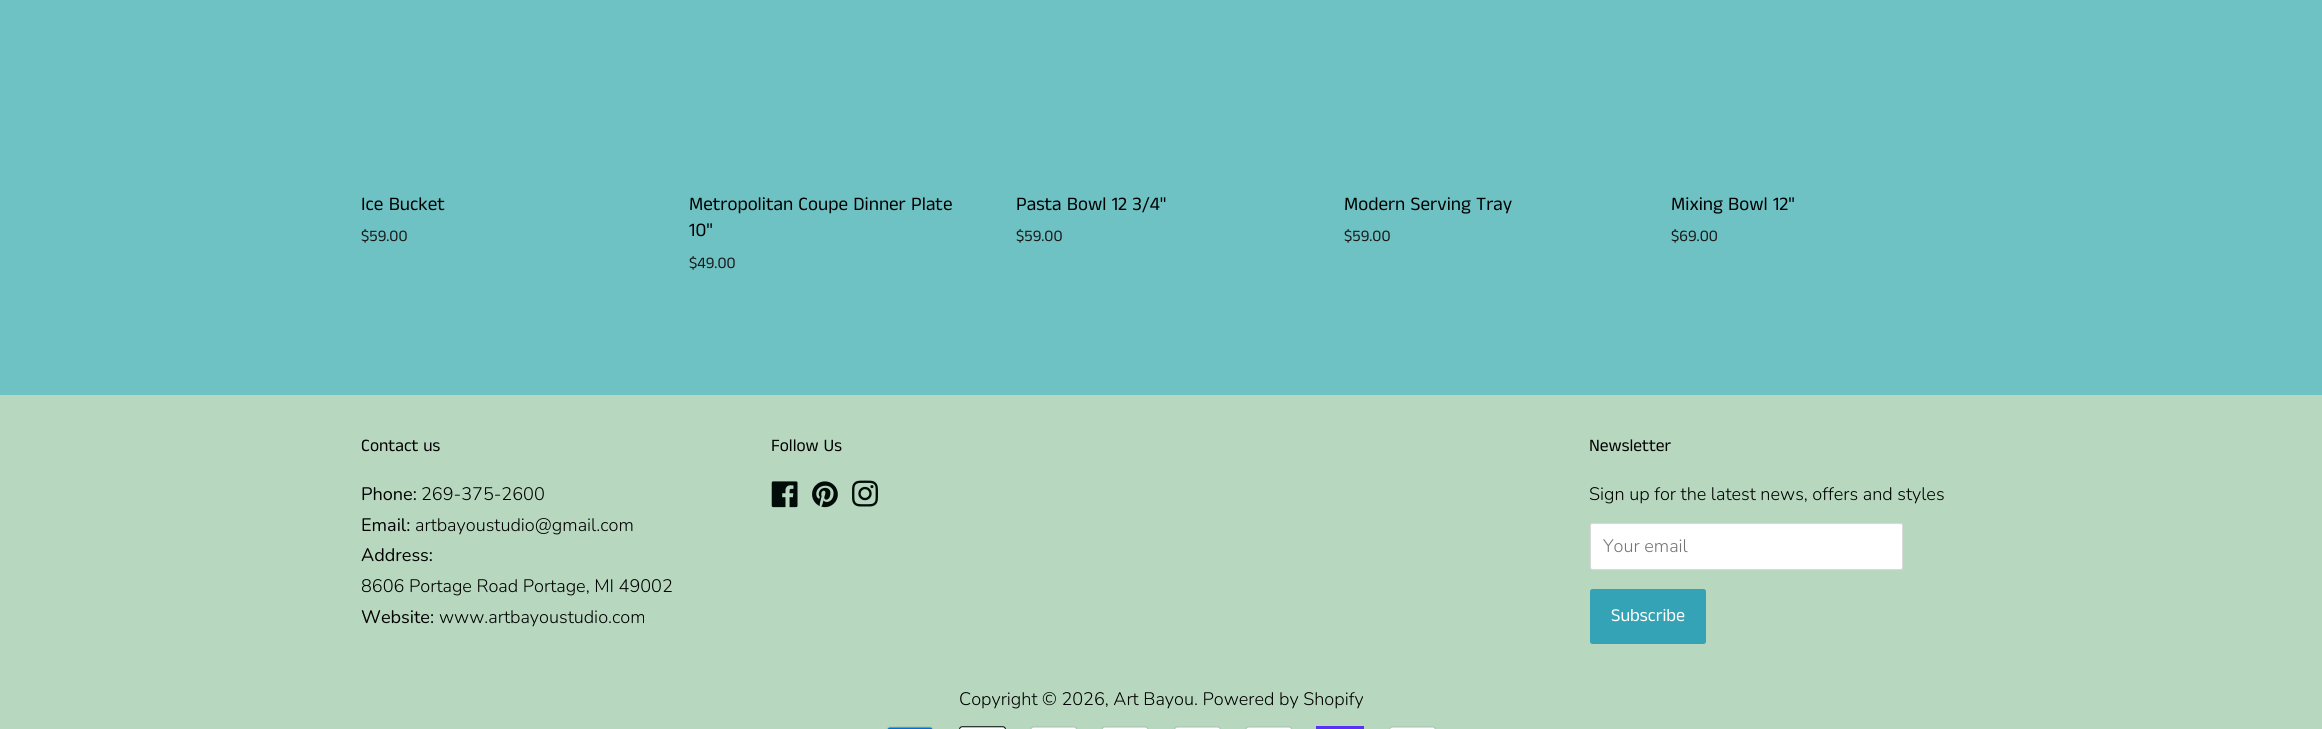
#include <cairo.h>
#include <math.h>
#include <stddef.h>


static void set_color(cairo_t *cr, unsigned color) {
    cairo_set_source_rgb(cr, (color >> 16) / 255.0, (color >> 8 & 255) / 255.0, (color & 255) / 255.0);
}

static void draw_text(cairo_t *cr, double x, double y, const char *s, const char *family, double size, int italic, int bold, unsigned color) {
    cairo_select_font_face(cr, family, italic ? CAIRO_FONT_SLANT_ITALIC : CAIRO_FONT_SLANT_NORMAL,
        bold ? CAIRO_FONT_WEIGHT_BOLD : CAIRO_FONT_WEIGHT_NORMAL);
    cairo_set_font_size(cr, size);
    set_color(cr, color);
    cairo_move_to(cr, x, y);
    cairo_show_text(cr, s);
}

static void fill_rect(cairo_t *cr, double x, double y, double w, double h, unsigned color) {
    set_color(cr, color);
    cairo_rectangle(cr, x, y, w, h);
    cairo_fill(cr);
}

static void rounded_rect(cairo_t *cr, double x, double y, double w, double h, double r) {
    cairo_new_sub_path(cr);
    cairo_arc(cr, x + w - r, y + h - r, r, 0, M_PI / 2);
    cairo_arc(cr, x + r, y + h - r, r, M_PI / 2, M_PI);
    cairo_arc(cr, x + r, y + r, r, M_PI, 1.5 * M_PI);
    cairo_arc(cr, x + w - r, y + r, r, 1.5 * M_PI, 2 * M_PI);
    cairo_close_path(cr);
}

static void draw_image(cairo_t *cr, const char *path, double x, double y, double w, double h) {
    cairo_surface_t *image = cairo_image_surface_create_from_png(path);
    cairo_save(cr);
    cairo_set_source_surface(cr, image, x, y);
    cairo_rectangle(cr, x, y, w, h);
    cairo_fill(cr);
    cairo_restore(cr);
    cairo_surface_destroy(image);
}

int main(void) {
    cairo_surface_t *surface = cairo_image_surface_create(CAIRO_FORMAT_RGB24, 2322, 729);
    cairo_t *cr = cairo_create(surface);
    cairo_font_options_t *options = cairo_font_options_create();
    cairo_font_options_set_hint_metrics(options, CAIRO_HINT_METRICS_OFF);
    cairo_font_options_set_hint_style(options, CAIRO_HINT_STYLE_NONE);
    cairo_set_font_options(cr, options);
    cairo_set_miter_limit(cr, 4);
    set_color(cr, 0x6EC2C4);
    cairo_paint(cr);
    draw_text(cr, 361, 210, "Ice Bucket", "Anek Tamil", 19.1, 0, 0, 0x000000);
    draw_text(cr, 361, 241, "$59.00", "Anek Tamil", 16, 0, 0, 0x1A1A1A);
    draw_text(cr, 689, 210, "Metropolitan Coupe Dinner Plate", "Anek Tamil", 19.1, 0, 0, 0x000000);
    draw_text(cr, 689, 236, "10\"", "Anek Tamil", 19.1, 0, 0, 0x000000);
    draw_text(cr, 689, 268, "$49.00", "Anek Tamil", 16, 0, 0, 0x1A1A1A);
    draw_text(cr, 1016, 210, "Pasta Bowl 12 3/4\"", "Anek Tamil", 19.1, 0, 0, 0x000000);
    draw_text(cr, 1016, 241, "$59.00", "Anek Tamil", 16, 0, 0, 0x1A1A1A);
    draw_text(cr, 1344, 210, "Modern Serving Tray", "Anek Tamil", 19.1, 0, 0, 0x000000);
    draw_text(cr, 1344, 241, "$59.00", "Anek Tamil", 16, 0, 0, 0x1A1A1A);
    draw_text(cr, 1671, 210, "Mixing Bowl 12\"", "Anek Tamil", 19.1, 0, 0, 0x000000);
    draw_text(cr, 1671, 241, "$69.00", "Anek Tamil", 16, 0, 0, 0x1A1A1A);
    fill_rect(cr, 0, 395, 2322, 334, 0xB7D7BF);
    draw_text(cr, 361, 451, "Contact us", "Anek Tamil", 17.5, 0, 0, 0x000000);
    draw_text(cr, 361, 500, "Phone:", "Nunito", 18.1, 0, 0, 0x000000);
    draw_text(cr, 421, 500, "269-375-2600", "Nunito Light", 18.1, 0, 0, 0x000000);
    draw_text(cr, 361, 531, "Email:", "Nunito", 18.1, 0, 0, 0x000000);
    draw_text(cr, 415, 531, "artbayoustudio@gmail.com", "Nunito Light", 18.1, 0, 0, 0x000000);
    draw_text(cr, 361, 561, "Address:", "Nunito", 18.1, 0, 0, 0x000000);
    draw_text(cr, 361, 592, "8606 Portage Road Portage, MI 49002", "Nunito Light", 18.1, 0, 0, 0x000000);
    draw_text(cr, 361, 623, "Website:", "Nunito", 18.1, 0, 0, 0x000000);
    draw_text(cr, 439, 623, "www.artbayoustudio.com", "Nunito Light", 18.1, 0, 0, 0x000000);
    draw_text(cr, 771, 451, "Follow Us", "Anek Tamil", 17.5, 0, 0, 0x000000);
    draw_image(cr, "assets/img1.png", 771, 481, 27, 27);
    draw_image(cr, "assets/img2.png", 812, 481, 26, 27);
    draw_image(cr, "assets/img3.png", 852, 480, 26, 27);
    draw_text(cr, 1589, 451, "Newsletter", "Anek Tamil", 17.5, 0, 0, 0x000000);
    draw_text(cr, 1589, 500, "Sign up for the latest news, offers and styles", "Nunito Light", 18.1, 0, 0, 0x000000);
    set_color(cr, 0xFFFFFF);
    rounded_rect(cr, 1590, 523, 313, 47, 2.5);
    cairo_fill(cr);
    rounded_rect(cr, 1590.5, 523.5, 312, 46, 2);
    cairo_set_source_rgba(cr, 0, 0, 0, 0.15);
    cairo_set_line_width(cr, 1);
    cairo_stroke(cr);
    draw_text(cr, 1603, 552, "Your email", "Nunito Light", 18.1, 0, 0, 0x757575);
    set_color(cr, 0x34A3B6);
    rounded_rect(cr, 1590, 589, 116, 55, 2.5);
    cairo_fill(cr);
    draw_text(cr, 1611, 621, "Subscribe", "Anek Tamil", 18.1, 0, 0, 0xFFFFFF);
    draw_text(cr, 959, 705, "Copyright © 2026, Art Bayou. Powered by Shopify", "Nunito Light", 18.1, 0, 0, 0x000000);
    draw_image(cr, "assets/img4.png", 886, 726, 48, 3);
    draw_image(cr, "assets/img5.png", 959, 726, 47, 3);
    draw_image(cr, "assets/img6.png", 1030, 726, 47, 3);
    draw_image(cr, "assets/img7.png", 1101, 726, 48, 3);
    draw_image(cr, "assets/img8.png", 1174, 726, 47, 3);
    draw_image(cr, "assets/img6.png", 1245, 726, 47, 3);
    fill_rect(cr, 1316, 726, 48, 3, 0x5A31F4);
    draw_image(cr, "assets/img8.png", 1389, 726, 47, 3);
    cairo_surface_write_to_png(surface, "output.png");
    cairo_font_options_destroy(options);
    cairo_destroy(cr);
    cairo_surface_destroy(surface);
    return 0;
}
